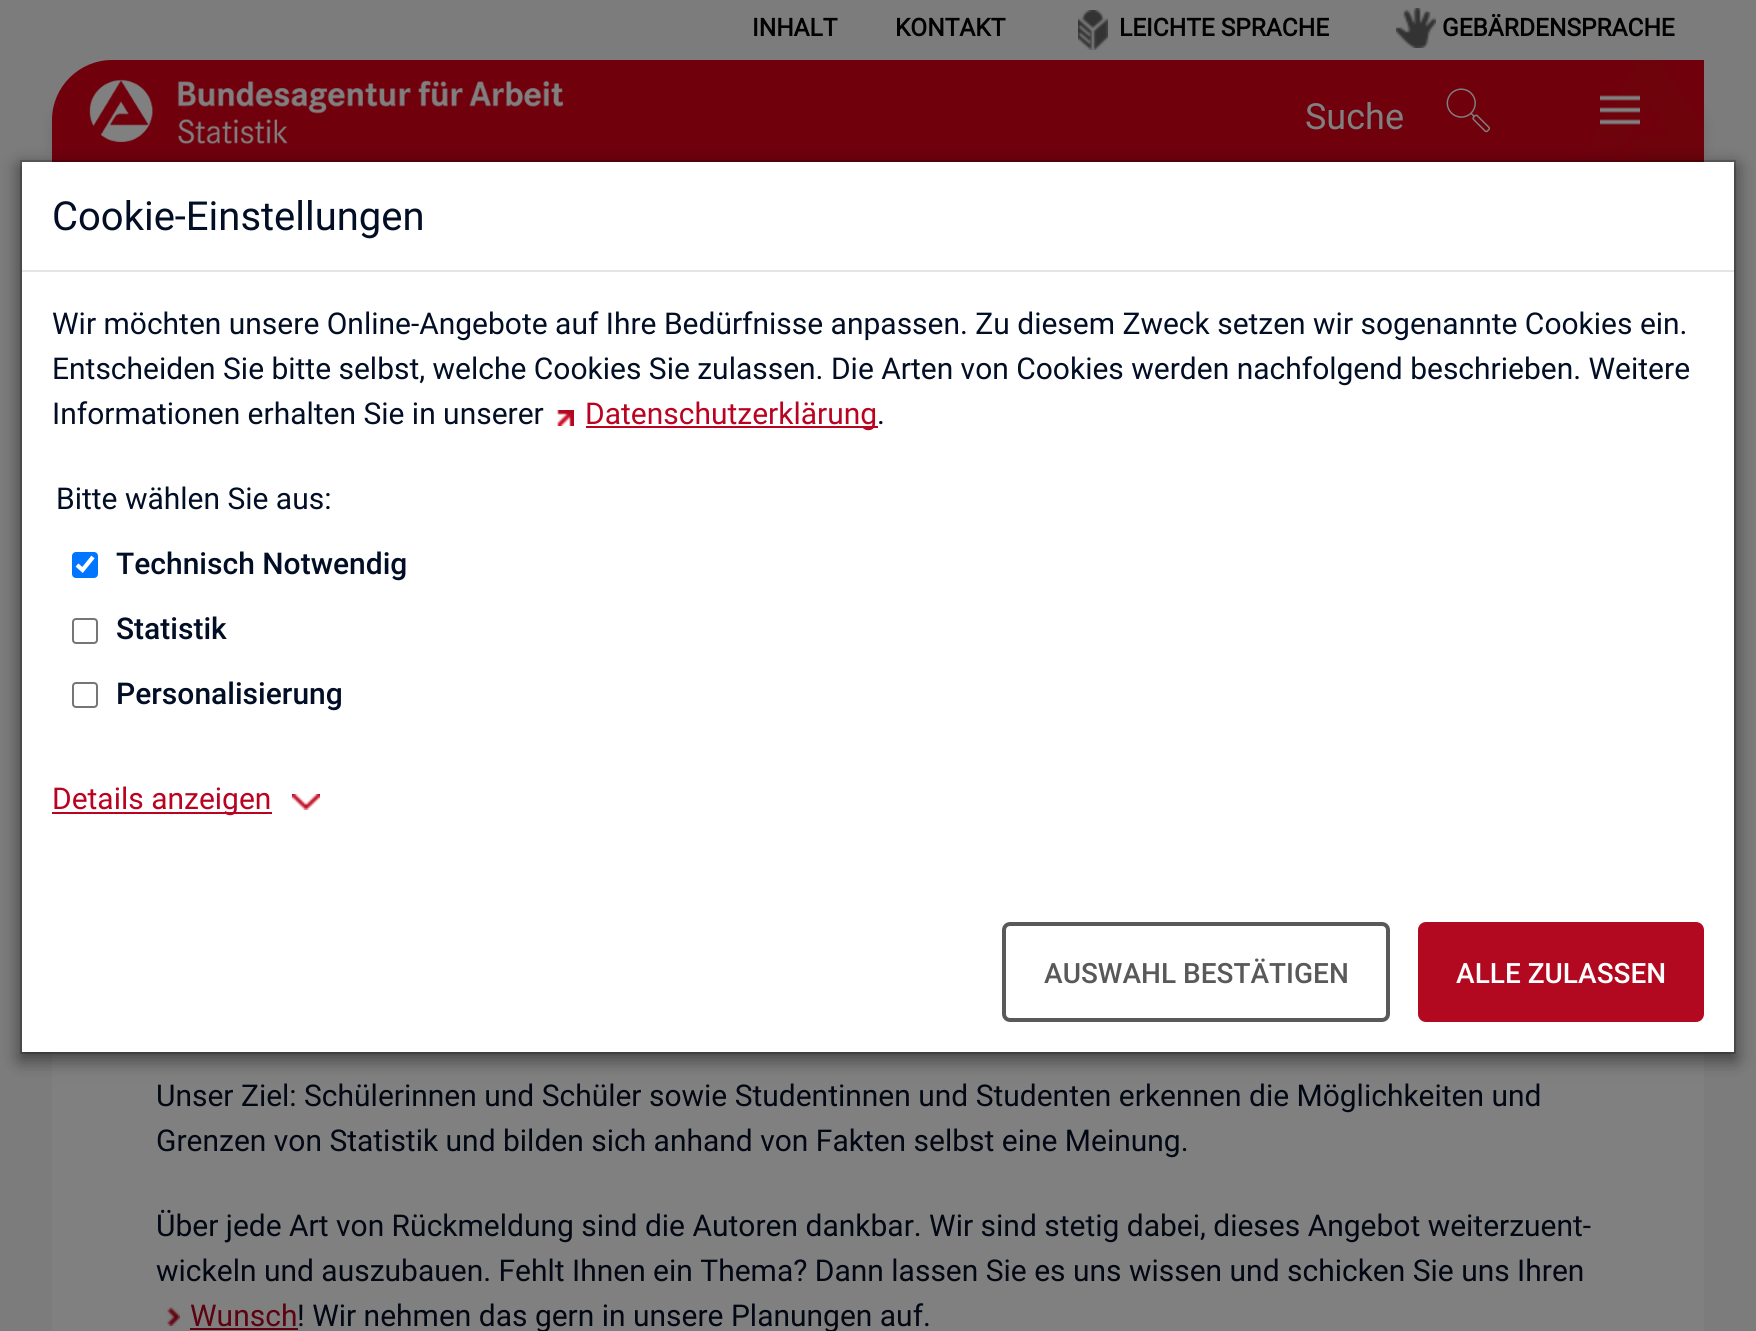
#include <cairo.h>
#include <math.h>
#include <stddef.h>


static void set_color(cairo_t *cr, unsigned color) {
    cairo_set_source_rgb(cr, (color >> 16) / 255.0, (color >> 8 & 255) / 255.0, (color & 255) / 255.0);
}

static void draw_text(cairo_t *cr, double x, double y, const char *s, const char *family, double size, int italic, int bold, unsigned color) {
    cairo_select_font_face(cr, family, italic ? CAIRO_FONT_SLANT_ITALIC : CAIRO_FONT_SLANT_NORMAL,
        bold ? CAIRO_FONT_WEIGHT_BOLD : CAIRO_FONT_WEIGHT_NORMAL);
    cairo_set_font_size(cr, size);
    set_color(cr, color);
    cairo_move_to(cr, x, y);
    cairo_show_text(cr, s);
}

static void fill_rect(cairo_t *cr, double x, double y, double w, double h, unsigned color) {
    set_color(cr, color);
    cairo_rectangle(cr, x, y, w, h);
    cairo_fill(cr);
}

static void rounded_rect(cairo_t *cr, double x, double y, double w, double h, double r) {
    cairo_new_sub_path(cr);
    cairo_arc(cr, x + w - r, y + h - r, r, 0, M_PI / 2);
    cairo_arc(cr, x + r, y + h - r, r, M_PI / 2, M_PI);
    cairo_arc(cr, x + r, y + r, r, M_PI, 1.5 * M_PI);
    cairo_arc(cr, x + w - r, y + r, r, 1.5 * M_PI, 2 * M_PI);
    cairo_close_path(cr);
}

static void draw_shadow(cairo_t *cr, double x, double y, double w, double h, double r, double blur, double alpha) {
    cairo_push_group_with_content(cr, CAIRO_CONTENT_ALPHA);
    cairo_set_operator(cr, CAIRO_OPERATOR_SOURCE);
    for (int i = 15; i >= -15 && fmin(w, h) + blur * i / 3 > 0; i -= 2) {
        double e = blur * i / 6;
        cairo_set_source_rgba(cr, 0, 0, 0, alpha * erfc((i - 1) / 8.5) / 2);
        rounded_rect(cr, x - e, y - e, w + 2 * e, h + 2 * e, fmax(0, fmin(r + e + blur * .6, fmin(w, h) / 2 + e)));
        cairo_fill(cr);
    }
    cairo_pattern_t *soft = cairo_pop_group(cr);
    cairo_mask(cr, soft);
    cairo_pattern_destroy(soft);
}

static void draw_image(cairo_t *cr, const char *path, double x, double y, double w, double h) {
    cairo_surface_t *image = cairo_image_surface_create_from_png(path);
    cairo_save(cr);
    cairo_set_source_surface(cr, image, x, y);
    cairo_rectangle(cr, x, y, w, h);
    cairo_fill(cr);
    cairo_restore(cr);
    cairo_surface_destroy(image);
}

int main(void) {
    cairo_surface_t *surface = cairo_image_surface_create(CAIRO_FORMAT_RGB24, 1756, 1331);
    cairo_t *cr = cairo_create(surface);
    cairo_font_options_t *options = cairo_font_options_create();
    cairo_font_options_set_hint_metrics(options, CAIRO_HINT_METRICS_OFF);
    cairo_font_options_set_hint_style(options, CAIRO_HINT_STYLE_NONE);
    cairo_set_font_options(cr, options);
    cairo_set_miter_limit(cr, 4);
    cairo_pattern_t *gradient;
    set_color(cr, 0x7C7C7C);
    cairo_paint(cr);
    draw_text(cr, 752, 36, "INHALT", "Roboto", 24.5, 0, 1, 0x000000);
    draw_text(cr, 895, 36, "KONTAKT", "Roboto", 24.5, 0, 1, 0x000000);
    draw_image(cr, "assets/img1.png", 1078, 10, 30, 40);
    draw_text(cr, 1119, 36, "LEICHTE SPRACHE", "Roboto", 24.5, 0, 1, 0x000000);
    draw_image(cr, "assets/img2.png", 1396, 8, 40, 40);
    draw_text(cr, 1442, 36, "GEBÄRDENSPRACHE", "Roboto", 24.5, 0, 1, 0x000000);
    set_color(cr, 0x000000);
    draw_shadow(cr, 56, 88, 1644, 94, 56, 10, 0.16);
    set_color(cr, 0x71000D);
    cairo_new_path(cr);
    cairo_move_to(cr, 112, 60);
    cairo_line_to(cr, 1704, 60);
    cairo_line_to(cr, 1704, 162);
    cairo_line_to(cr, 52, 162);
    cairo_line_to(cr, 52, 120);
    cairo_curve_to(cr, 52, 87, 79, 60, 112, 60);
    cairo_close_path(cr);
    cairo_fill(cr);
    gradient = cairo_pattern_create_linear(1617, 203, 1649, 147);
    cairo_pattern_add_color_stop_rgba(gradient, 0.2, 0.443, 0, 0.051, 1);
    cairo_pattern_add_color_stop_rgba(gradient, 0.97, 0.431, 0.012, 0.047, 1);
    cairo_set_source(cr, gradient);
    cairo_pattern_destroy(gradient);
    cairo_new_path(cr);
    cairo_move_to(cr, 1614, 162);
    cairo_line_to(cr, 1650, 103);
    cairo_line_to(cr, 1670, 136);
    cairo_curve_to(cr, 1662, 136, 1643, 135, 1637, 139);
    cairo_curve_to(cr, 1632, 143, 1626, 156, 1622, 162);
    cairo_line_to(cr, 1703, 162);
    cairo_line_to(cr, 1703, 130);
    cairo_line_to(cr, 1660, 60);
    cairo_line_to(cr, 1639, 60);
    cairo_line_to(cr, 1578, 162);
    cairo_close_path(cr);
    cairo_fill(cr);
    draw_image(cr, "assets/img3.png", 89, 79, 475, 65);
    draw_text(cr, 1305, 129, "Suche", "Roboto", 36, 0, 0, 0x808080);
    draw_image(cr, "assets/img4.png", 1446, 88, 45, 45);
    draw_image(cr, "assets/img5.png", 1600, 95, 40, 30);
    fill_rect(cr, 52, 1052, 1652, 279, 0x808080);
    set_color(cr, 0x000000);
    draw_shadow(cr, 20, 166, 1716, 894, 0, 9, 0.5);
    fill_rect(cr, 22, 162, 1712, 890, 0xFFFFFF);
    cairo_rectangle(cr, 21, 161, 1714, 892);
    cairo_set_source_rgba(cr, 0, 0, 0, 0.2);
    cairo_stroke(cr);
    fill_rect(cr, 22, 270, 1712, 2, 0xE5E5E5);
    draw_text(cr, 52, 230, "Cookie-Einstellungen", "Roboto", 40, 0, 0, 0x020E25);
    draw_text(cr, 52, 334, "Wir möchten unsere Online-Angebote auf Ihre Bedürfnisse anpassen. Zu diesem Zweck setzen wir sogenannte Cookies ein.", "Roboto", 30, 0, 0, 0x020E25);
    draw_text(cr, 52, 379, "Entscheiden Sie bitte selbst, welche Cookies Sie zulassen. Die Arten von Cookies werden nachfolgend beschrieben. Weitere", "Roboto", 30, 0, 0, 0x020E25);
    draw_text(cr, 52, 424, "Informationen erhalten Sie in unserer", "Roboto", 30, 0, 0, 0x020E25);
    draw_image(cr, "assets/img6.png", 557, 410, 17, 16);
    fill_rect(cr, 586, 426, 292, 2, 0xB90320);
    draw_text(cr, 585, 424, "Datenschutzerklärung", "Roboto", 30, 0, 0, 0xB90320);
    draw_text(cr, 877, 424, ".", "Roboto", 30, 0, 0, 0x020E25);
    draw_text(cr, 56, 509, "Bitte wählen Sie aus:", "Roboto", 30, 0, 0, 0x020E25);
    set_color(cr, 0x0075FF);
    rounded_rect(cr, 72, 552, 26, 26, 4);
    cairo_fill(cr);
    cairo_new_path(cr);
    cairo_move_to(cr, 77, 565);
    cairo_line_to(cr, 82.5, 570);
    cairo_line_to(cr, 93, 557);
    set_color(cr, 0xFFFFFF);
    cairo_set_line_width(cr, 4.2);
    cairo_stroke(cr);
    draw_text(cr, 116, 574, "Technisch Notwendig", "Roboto Medium", 30, 0, 0, 0x020E25);
    rounded_rect(cr, 73, 619, 24, 24, 3);
    set_color(cr, 0x767676);
    cairo_set_line_width(cr, 2);
    cairo_stroke(cr);
    draw_text(cr, 116, 639, "Statistik", "Roboto Medium", 30, 0, 0, 0x020E25);
    rounded_rect(cr, 73, 683, 24, 24, 3);
    set_color(cr, 0x767676);
    cairo_stroke(cr);
    draw_text(cr, 116, 704, "Personalisierung", "Roboto Medium", 30, 0, 0, 0x020E25);
    fill_rect(cr, 52, 812, 220, 2, 0xB90320);
    draw_text(cr, 52, 809, "Details anzeigen", "Roboto", 30, 0, 0, 0xB90320);
    draw_image(cr, "assets/img7.png", 292, 794, 28, 16);
    rounded_rect(cr, 1004, 924, 384, 96, 6);
    set_color(cr, 0x595959);
    cairo_set_line_width(cr, 4);
    cairo_stroke(cr);
    draw_text(cr, 1044, 983, "AUSWAHL BESTÄTIGEN", "Roboto Medium", 28, 0, 0, 0x595959);
    set_color(cr, 0xB30920);
    rounded_rect(cr, 1418, 922, 286, 100, 8);
    cairo_fill(cr);
    draw_text(cr, 1456, 983, "ALLE ZULASSEN", "Roboto Medium", 28, 0, 0, 0xFFFFFF);
    draw_text(cr, 156, 1106, "Unser Ziel: Schülerinnen und Schüler sowie Studentinnen und Studenten erkennen die Möglichkeiten und", "Roboto", 30, 0, 0, 0x010713);
    draw_text(cr, 156, 1151, "Grenzen von Statistik und bilden sich anhand von Fakten selbst eine Meinung.", "Roboto", 30, 0, 0, 0x010713);
    draw_text(cr, 156, 1236, "Über jede Art von Rückmeldung sind die Autoren dankbar. Wir sind stetig dabei, dieses Angebot weiterzuent-", "Roboto", 30, 0, 0, 0x010713);
    draw_text(cr, 156, 1281, "wickeln und auszubauen. Fehlt Ihnen ein Thema? Dann lassen Sie es uns wissen und schicken Sie uns Ihren", "Roboto", 30, 0, 0, 0x010713);
    draw_image(cr, "assets/img8.png", 167, 1307, 13, 19);
    draw_text(cr, 190, 1326, "Wunsch", "Roboto", 30, 0, 0, 0x5D0210);
    fill_rect(cr, 190, 1328, 108, 2, 0x5D0210);
    draw_text(cr, 297, 1326, "! Wir nehmen das gern in unsere Planungen auf.", "Roboto", 30, 0, 0, 0x010713);
    cairo_surface_write_to_png(surface, "output.png");
    cairo_font_options_destroy(options);
    cairo_destroy(cr);
    cairo_surface_destroy(surface);
    return 0;
}
